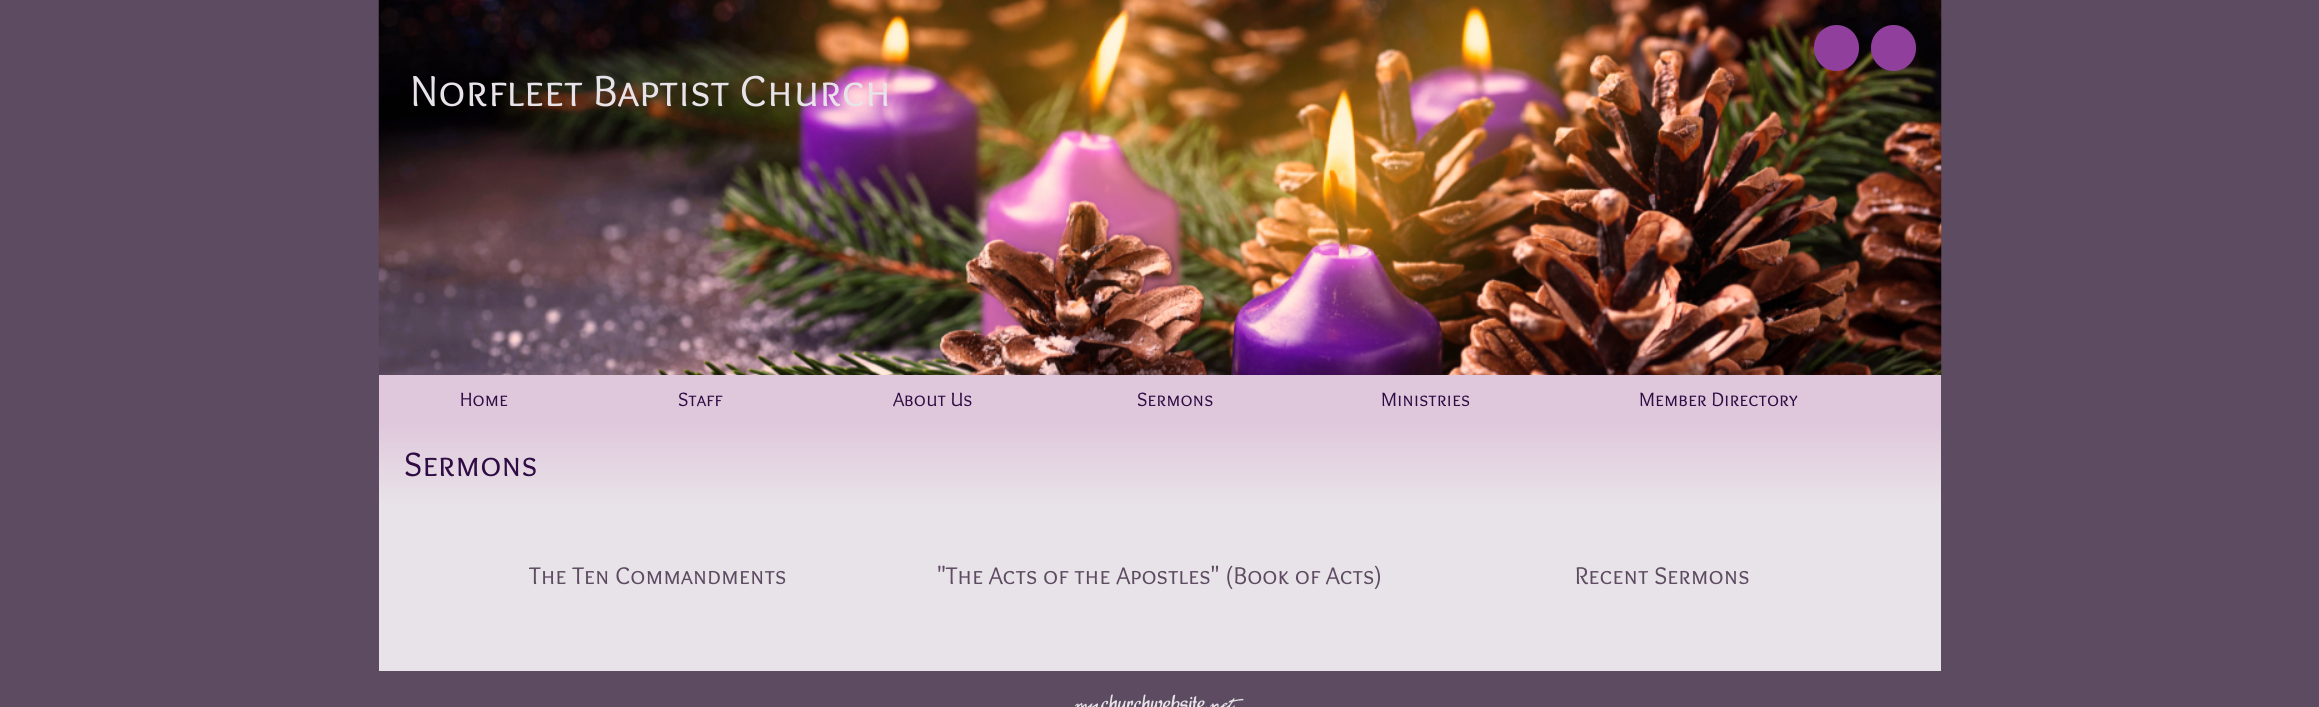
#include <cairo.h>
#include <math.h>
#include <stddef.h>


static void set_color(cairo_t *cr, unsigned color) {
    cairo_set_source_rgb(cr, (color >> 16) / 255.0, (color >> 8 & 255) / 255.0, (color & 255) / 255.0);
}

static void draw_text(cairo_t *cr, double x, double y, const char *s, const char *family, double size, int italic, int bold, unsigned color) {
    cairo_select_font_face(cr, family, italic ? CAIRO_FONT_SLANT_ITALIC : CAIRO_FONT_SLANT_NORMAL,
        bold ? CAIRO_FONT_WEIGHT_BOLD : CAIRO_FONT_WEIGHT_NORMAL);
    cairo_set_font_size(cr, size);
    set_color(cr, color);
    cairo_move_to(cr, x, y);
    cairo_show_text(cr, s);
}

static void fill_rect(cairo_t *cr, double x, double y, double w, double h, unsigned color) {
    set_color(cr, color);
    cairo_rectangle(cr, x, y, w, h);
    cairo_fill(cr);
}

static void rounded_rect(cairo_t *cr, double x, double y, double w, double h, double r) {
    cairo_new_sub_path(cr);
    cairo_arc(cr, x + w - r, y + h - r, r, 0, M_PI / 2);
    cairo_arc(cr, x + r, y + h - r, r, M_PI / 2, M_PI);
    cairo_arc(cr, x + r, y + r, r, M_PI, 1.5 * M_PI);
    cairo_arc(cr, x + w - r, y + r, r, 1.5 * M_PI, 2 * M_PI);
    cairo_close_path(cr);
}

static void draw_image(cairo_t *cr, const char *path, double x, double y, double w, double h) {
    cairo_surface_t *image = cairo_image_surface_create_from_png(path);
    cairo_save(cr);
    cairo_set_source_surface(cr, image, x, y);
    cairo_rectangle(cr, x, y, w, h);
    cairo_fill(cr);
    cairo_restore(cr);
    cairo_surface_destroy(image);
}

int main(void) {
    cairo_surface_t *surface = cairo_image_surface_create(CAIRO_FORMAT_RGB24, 2319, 707);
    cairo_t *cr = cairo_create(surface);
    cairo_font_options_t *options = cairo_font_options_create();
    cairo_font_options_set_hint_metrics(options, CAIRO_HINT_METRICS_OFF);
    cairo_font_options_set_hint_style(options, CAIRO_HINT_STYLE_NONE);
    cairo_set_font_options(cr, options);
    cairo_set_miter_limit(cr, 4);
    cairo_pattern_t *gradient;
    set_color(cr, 0x5D4B61);
    cairo_paint(cr);
    draw_image(cr, "assets/img1.png", 378, 0, 1564, 375);
    set_color(cr, 0x903F9C);
    rounded_rect(cr, 1814, 25, 45, 46, 22.5);
    cairo_fill(cr);
    rounded_rect(cr, 1871, 25, 45, 46, 22.5);
    cairo_fill(cr);
    draw_text(cr, 410, 106, "Norfleet Baptist Church", "Overlock SC", 45, 0, 0, 0xE8E3E8);
    fill_rect(cr, 379, 375, 1562, 49, 0xE0C8DC);
    draw_text(cr, 460, 406, "Home", "Overlock SC", 20, 0, 0, 0x2F0C44);
    draw_text(cr, 678, 406, "Staff", "Overlock SC", 20, 0, 0, 0x2F0C44);
    draw_text(cr, 893, 406, "About Us", "Overlock SC", 20, 0, 0, 0x2F0C44);
    draw_text(cr, 1137, 406, "Sermons", "Overlock SC", 20, 0, 0, 0x2F0C44);
    draw_text(cr, 1381, 406, "Ministries", "Overlock SC", 20, 0, 0, 0x2F0C44);
    draw_text(cr, 1639, 406, "Member Directory", "Overlock SC", 20, 0, 0, 0x2F0C44);
    fill_rect(cr, 379, 504, 1562, 167, 0xE8E3E8);
    gradient = cairo_pattern_create_linear(1160, 424, 1160, 504);
    cairo_pattern_add_color_stop_rgba(gradient, 0, 0.878, 0.784, 0.863, 1);
    cairo_pattern_add_color_stop_rgba(gradient, 1, 0.91, 0.89, 0.91, 1);
    cairo_set_source(cr, gradient);
    cairo_pattern_destroy(gradient);
    cairo_rectangle(cr, 379, 424, 1562, 80);
    cairo_fill(cr);
    draw_text(cr, 404, 476, "Sermons", "Overlock SC", 35, 0, 0, 0x2F0C44);
    draw_text(cr, 529, 584, "The Ten Commandments", "Overlock SC", 25, 0, 0, 0x5D4B61);
    draw_text(cr, 937, 584, "\"The Acts of the Apostles\" (Book of Acts)", "Overlock SC", 25, 0, 0, 0x5D4B61);
    draw_text(cr, 1575, 584, "Recent Sermons", "Overlock SC", 25, 0, 0, 0x5D4B61);
    draw_image(cr, "assets/img2.png", 1075, 694, 169, 13);
    cairo_surface_write_to_png(surface, "output.png");
    cairo_font_options_destroy(options);
    cairo_destroy(cr);
    cairo_surface_destroy(surface);
    return 0;
}
